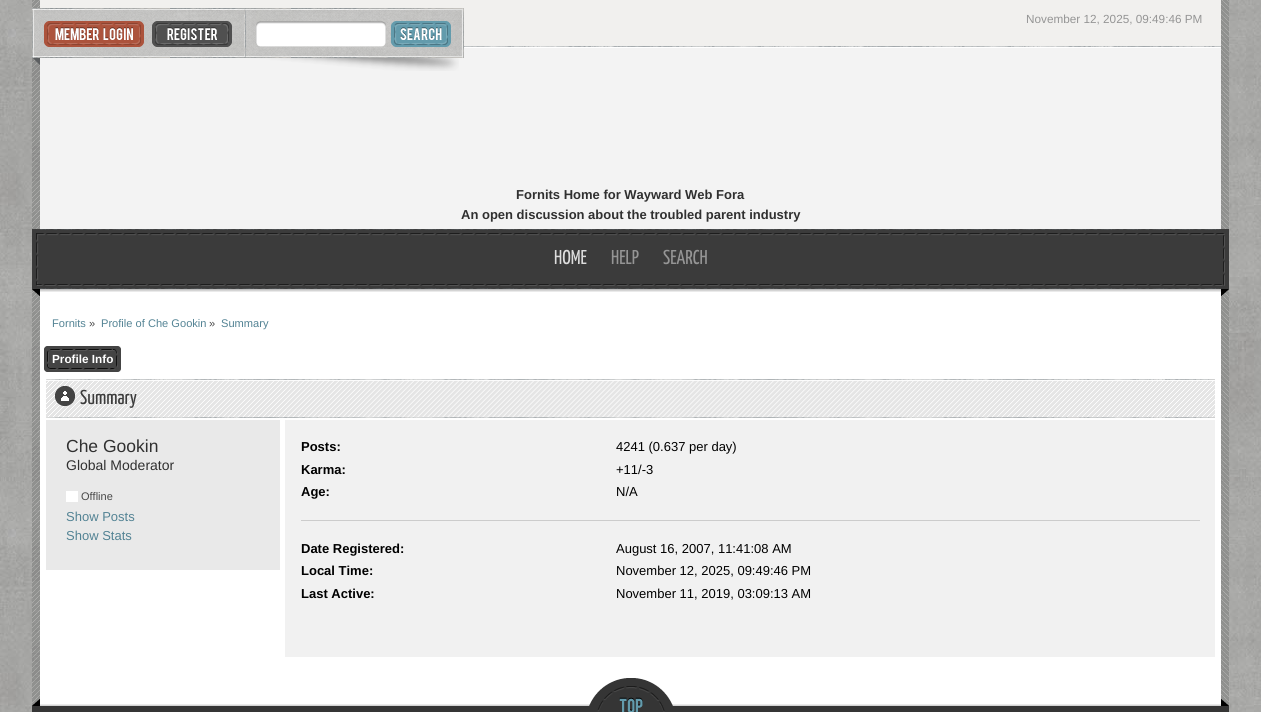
#include <cairo.h>
#include <math.h>
#include <stddef.h>


static void set_color(cairo_t *cr, unsigned color) {
    cairo_set_source_rgb(cr, (color >> 16) / 255.0, (color >> 8 & 255) / 255.0, (color & 255) / 255.0);
}

static void draw_text(cairo_t *cr, double x, double y, const char *s, const char *family, double size, int italic, int bold, unsigned color) {
    cairo_select_font_face(cr, family, italic ? CAIRO_FONT_SLANT_ITALIC : CAIRO_FONT_SLANT_NORMAL,
        bold ? CAIRO_FONT_WEIGHT_BOLD : CAIRO_FONT_WEIGHT_NORMAL);
    cairo_set_font_size(cr, size);
    set_color(cr, color);
    cairo_move_to(cr, x, y);
    cairo_show_text(cr, s);
}

static void fill_rect(cairo_t *cr, double x, double y, double w, double h, unsigned color) {
    set_color(cr, color);
    cairo_rectangle(cr, x, y, w, h);
    cairo_fill(cr);
}

static void draw_image(cairo_t *cr, const char *path, double x, double y, double w, double h) {
    cairo_surface_t *image = cairo_image_surface_create_from_png(path);
    cairo_save(cr);
    cairo_set_source_surface(cr, image, x, y);
    cairo_rectangle(cr, x, y, w, h);
    cairo_fill(cr);
    cairo_restore(cr);
    cairo_surface_destroy(image);
}

int main(void) {
    cairo_surface_t *surface = cairo_image_surface_create(CAIRO_FORMAT_RGB24, 1261, 712);
    cairo_t *cr = cairo_create(surface);
    cairo_font_options_t *options = cairo_font_options_create();
    cairo_font_options_set_hint_metrics(options, CAIRO_HINT_METRICS_OFF);
    cairo_font_options_set_hint_style(options, CAIRO_HINT_STYLE_NONE);
    cairo_set_font_options(cr, options);
    cairo_set_miter_limit(cr, 4);
    set_color(cr, 0xFFFFFF);
    cairo_paint(cr);
    draw_image(cr, "assets/img1.png", 0, 0, 1261, 712);
    draw_image(cr, "assets/img2.png", 32, 0, 8, 706);
    draw_image(cr, "assets/img3.png", 1221, 0, 8, 706);
    fill_rect(cr, 40, 0, 1181, 46, 0xF1F0EE);
    draw_image(cr, "assets/img4.png", 464, 46, 757, 2);
    fill_rect(cr, 40, 48, 1181, 181, 0xF3F3F3);
    draw_image(cr, "assets/img5.png", 32, 8, 212, 57);
    draw_image(cr, "assets/img6.png", 44, 21, 100, 26);
    draw_image(cr, "assets/img7.png", 152, 21, 80, 26);
    draw_image(cr, "assets/img8.png", 244, 8, 220, 63);
    draw_image(cr, "assets/img9.png", 256, 21, 130, 26);
    draw_image(cr, "assets/img10.png", 391, 21, 60, 26);
    draw_text(cr, 1026, 23, "November 12, 2025, 09:49:46 PM", "Liberation Sans", 11.75, 0, 0, 0x959595);
    draw_text(cr, 516, 199, "Fornits Home for Wayward Web Fora", "Liberation Sans", 13, 0, 1, 0x303030);
    draw_text(cr, 461, 219, "An open discussion about the troubled parent industry", "Liberation Sans", 13, 0, 1, 0x303030);
    fill_rect(cr, 40, 289, 1181, 417, 0xFFFFFF);
    draw_image(cr, "assets/img11.png", 40, 229, 1181, 63);
    draw_image(cr, "assets/img12.png", 32, 229, 8, 67);
    draw_image(cr, "assets/img13.png", 1221, 229, 8, 67);
    draw_text(cr, 554, 264, "HOME", "Yanone Kaffeesatz", 20, 0, 0, 0xDDDDDD);
    draw_text(cr, 611, 264, "HELP", "Yanone Kaffeesatz", 20, 0, 0, 0x959595);
    draw_text(cr, 663, 264, "SEARCH", "Yanone Kaffeesatz", 20, 0, 0, 0x959595);
    draw_text(cr, 52, 327, "Fornits", "Liberation Sans", 11.1, 0, 0, 0x538394);
    draw_text(cr, 89, 327, "»", "Liberation Sans", 11.1, 0, 0, 0x484848);
    draw_text(cr, 101, 327, "Profile of Che Gookin", "Liberation Sans", 11.1, 0, 0, 0x538394);
    draw_text(cr, 209, 327, "»", "Liberation Sans", 11.1, 0, 0, 0x484848);
    draw_text(cr, 221, 327, "Summary", "Liberation Sans", 11.1, 0, 0, 0x538394);
    draw_image(cr, "assets/img14.png", 113, 346, 8, 26);
    draw_image(cr, "assets/img15.png", 44, 346, 69, 26);
    draw_text(cr, 52, 363, "Profile Info", "Liberation Sans", 11.75, 0, 1, 0xFFFFFF);
    draw_image(cr, "assets/img16.png", 46, 379, 9, 39);
    draw_image(cr, "assets/img17.png", 55, 379, 1160, 39);
    draw_image(cr, "assets/img18.png", 55, 386, 20, 20);
    draw_text(cr, 80, 404, "Summary", "Yanone Kaffeesatz", 20, 0, 0, 0x3B3B3B);
    fill_rect(cr, 46, 420, 234, 150, 0xE9E9E9);
    draw_text(cr, 66, 452, "Che Gookin", "Liberation Sans", 17.5, 0, 0, 0x303030);
    draw_text(cr, 66, 470, "Global Moderator", "Liberation Sans", 14, 0, 0, 0x303030);
    fill_rect(cr, 66, 491, 12, 11, 0xFFFFFF);
    draw_text(cr, 81, 500, "Offline", "Liberation Sans", 11, 0, 0, 0x484848);
    draw_text(cr, 66, 521, "Show Posts", "Liberation Sans", 13, 0, 0, 0x538394);
    draw_text(cr, 66, 540, "Show Stats", "Liberation Sans", 13, 0, 0, 0x538394);
    fill_rect(cr, 285, 420, 930, 237, 0xF1F1F1);
    fill_rect(cr, 301, 520, 899, 1, 0xCCCCCC);
    draw_text(cr, 301, 451, "Posts:", "Liberation Sans", 13, 0, 1, 0x000000);
    draw_text(cr, 616, 451, "4241 (0.637 per day)", "Liberation Sans", 13, 0, 0, 0x000000);
    draw_text(cr, 301, 474, "Karma:", "Liberation Sans", 13, 0, 1, 0x000000);
    draw_text(cr, 616, 474, "+11/-3", "Liberation Sans", 13, 0, 0, 0x000000);
    draw_text(cr, 301, 496, "Age:", "Liberation Sans", 13, 0, 1, 0x000000);
    draw_text(cr, 616, 496, "N/A", "Liberation Sans", 13, 0, 0, 0x000000);
    draw_text(cr, 301, 553, "Date Registered:", "Liberation Sans", 13, 0, 1, 0x000000);
    draw_text(cr, 616, 553, "August 16, 2007, 11:41:08 AM", "Liberation Sans", 13, 0, 0, 0x000000);
    draw_text(cr, 301, 575, "Local Time:", "Liberation Sans", 13, 0, 1, 0x000000);
    draw_text(cr, 616, 575, "November 12, 2025, 09:49:46 PM", "Liberation Sans", 13, 0, 0, 0x000000);
    draw_text(cr, 301, 598, "Last Active:", "Liberation Sans", 13, 0, 1, 0x000000);
    draw_text(cr, 616, 598, "November 11, 2019, 03:09:13 AM", "Liberation Sans", 13, 0, 0, 0x000000);
    draw_image(cr, "assets/img19.png", 40, 704, 1181, 8);
    draw_image(cr, "assets/img20.png", 32, 699, 8, 13);
    draw_image(cr, "assets/img21.png", 1221, 699, 8, 13);
    draw_image(cr, "assets/img22.png", 589, 678, 84, 34);
    cairo_surface_write_to_png(surface, "output.png");
    cairo_font_options_destroy(options);
    cairo_destroy(cr);
    cairo_surface_destroy(surface);
    return 0;
}
